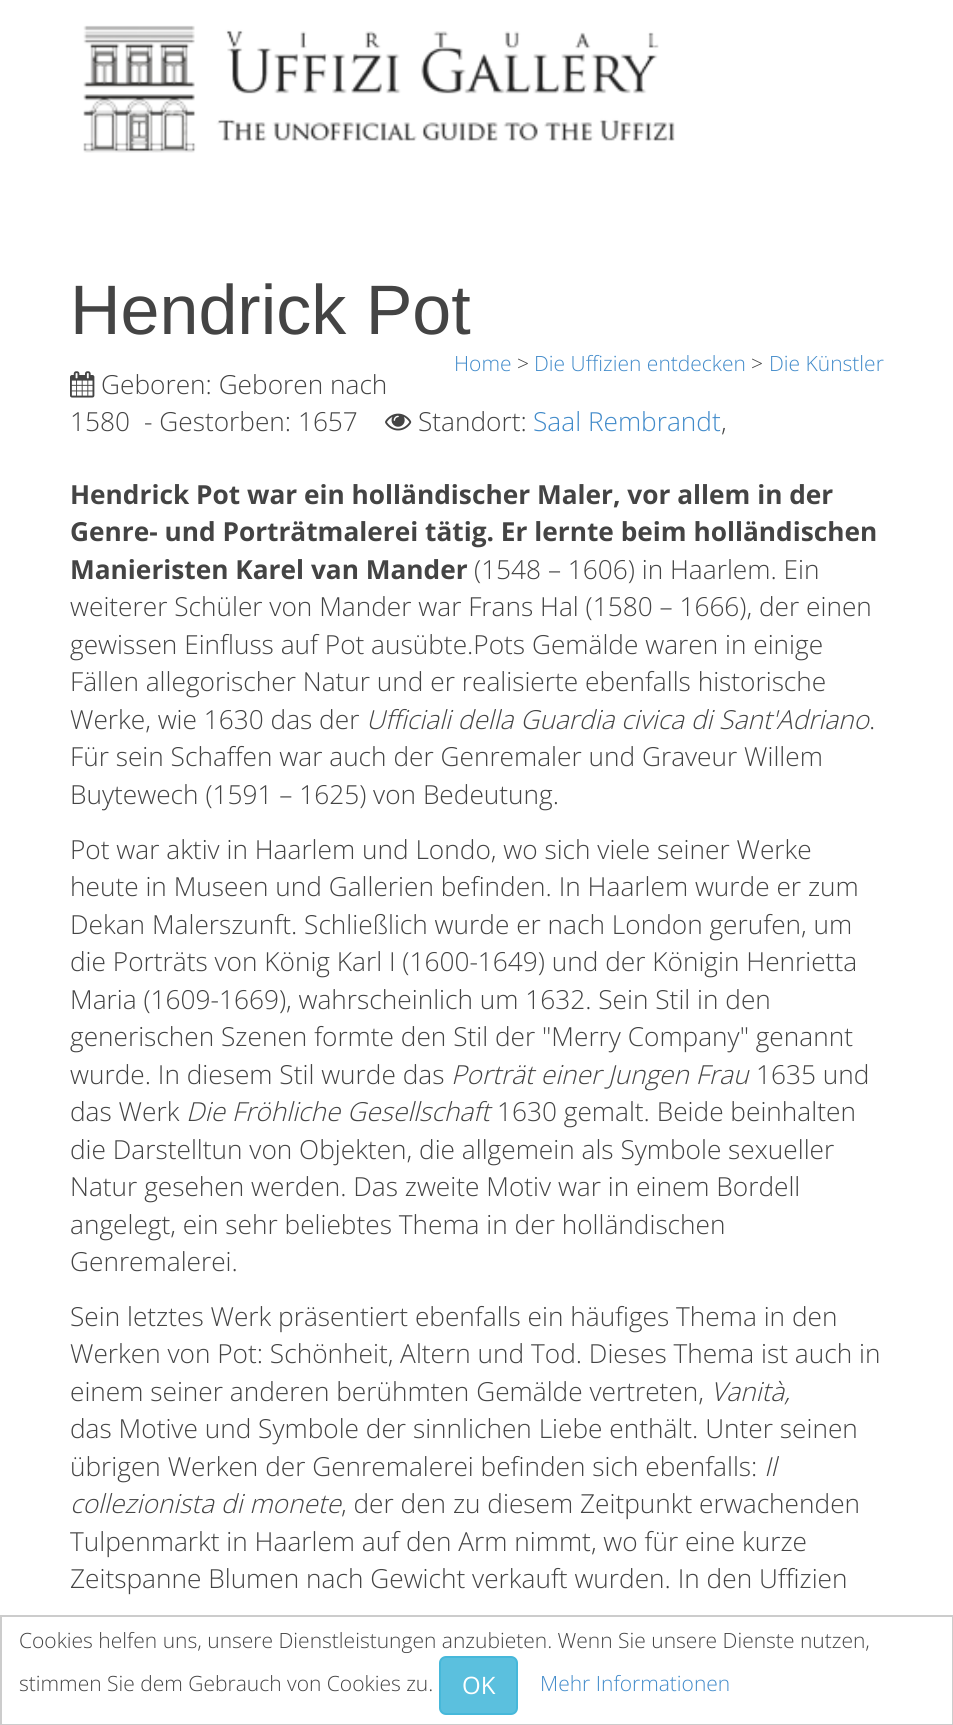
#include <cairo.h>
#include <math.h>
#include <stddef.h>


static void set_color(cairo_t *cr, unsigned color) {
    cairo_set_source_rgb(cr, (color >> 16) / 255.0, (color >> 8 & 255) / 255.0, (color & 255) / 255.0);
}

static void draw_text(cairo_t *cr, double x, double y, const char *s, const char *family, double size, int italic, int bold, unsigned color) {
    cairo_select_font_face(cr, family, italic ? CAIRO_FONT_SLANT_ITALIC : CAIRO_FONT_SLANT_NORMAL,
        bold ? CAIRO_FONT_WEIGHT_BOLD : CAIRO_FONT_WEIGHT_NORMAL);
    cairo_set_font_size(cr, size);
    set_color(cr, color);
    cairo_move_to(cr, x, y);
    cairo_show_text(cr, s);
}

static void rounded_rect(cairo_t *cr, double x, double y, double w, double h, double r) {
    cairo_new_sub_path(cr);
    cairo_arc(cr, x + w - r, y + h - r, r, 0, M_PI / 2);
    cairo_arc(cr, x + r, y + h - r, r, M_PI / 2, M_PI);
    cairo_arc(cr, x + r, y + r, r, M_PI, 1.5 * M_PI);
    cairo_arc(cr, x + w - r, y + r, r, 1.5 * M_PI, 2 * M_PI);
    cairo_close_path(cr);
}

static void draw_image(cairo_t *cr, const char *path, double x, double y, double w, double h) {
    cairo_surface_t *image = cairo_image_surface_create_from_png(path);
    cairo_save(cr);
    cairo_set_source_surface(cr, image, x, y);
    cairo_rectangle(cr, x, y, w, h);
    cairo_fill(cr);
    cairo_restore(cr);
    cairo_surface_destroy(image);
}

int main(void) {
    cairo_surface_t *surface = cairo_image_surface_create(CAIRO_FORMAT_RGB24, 953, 1725);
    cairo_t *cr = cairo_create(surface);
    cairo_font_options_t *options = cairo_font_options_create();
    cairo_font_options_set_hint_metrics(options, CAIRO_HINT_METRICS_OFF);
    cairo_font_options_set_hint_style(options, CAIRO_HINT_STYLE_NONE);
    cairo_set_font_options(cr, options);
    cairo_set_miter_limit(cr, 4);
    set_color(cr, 0xFFFFFF);
    cairo_paint(cr);
    draw_image(cr, "assets/img1.png", 83, 25, 592, 128);
    draw_text(cr, 70, 334, "Hendrick Pot", "Liberation Sans", 70, 0, 0, 0x444444);
    draw_text(cr, 454, 371, "Home", "Open Sans Light", 21, 0, 0, 0x428BCA);
    draw_text(cr, 517, 371, ">", "Open Sans Light", 21, 0, 0, 0x444444);
    draw_text(cr, 534, 371, "Die Uffizien entdecken", "Open Sans Light", 21, 0, 0, 0x428BCA);
    draw_text(cr, 751, 371, ">", "Open Sans Light", 21, 0, 0, 0x444444);
    draw_text(cr, 769, 371, "Die Künstler", "Open Sans Light", 21, 0, 0, 0x428BCA);
    draw_image(cr, "assets/img2.png", 70, 371, 25, 27);
    draw_text(cr, 101, 394, "Geboren: Geboren nach", "Open Sans Light", 26.25, 0, 0, 0x444444);
    draw_text(cr, 70, 431, "1580", "Open Sans Light", 26.25, 0, 0, 0x444444);
    draw_text(cr, 144, 431, "- Gestorben: 1657", "Open Sans Light", 26.25, 0, 0, 0x444444);
    draw_image(cr, "assets/img3.png", 385, 413, 27, 18);
    draw_text(cr, 418, 431, "Standort:", "Open Sans Light", 26.25, 0, 0, 0x444444);
    draw_text(cr, 533, 431, "Saal Rembrandt", "Open Sans Light", 26.25, 0, 0, 0x428BCA);
    draw_text(cr, 721, 431, ",", "Open Sans Light", 26.25, 0, 0, 0x444444);
    draw_text(cr, 70, 504, "Hendrick Pot war ein holländischer Maler, vor allem in der", "Open Sans", 26.25, 0, 1, 0x444444);
    draw_text(cr, 70, 541, "Genre- und Porträtmalerei tätig. Er lernte beim holländischen", "Open Sans", 26.25, 0, 1, 0x444444);
    draw_text(cr, 70, 579, "Manieristen Karel van Mander", "Open Sans", 26.25, 0, 1, 0x444444);
    draw_text(cr, 474, 579, "(1548 – 1606) in Haarlem. Ein", "Open Sans Light", 26.25, 0, 0, 0x444444);
    draw_text(cr, 70, 616, "weiterer Schüler von Mander war Frans Hal (1580 – 1666), der einen", "Open Sans Light", 26.25, 0, 0, 0x444444);
    draw_text(cr, 70, 654, "gewissen Einfluss auf Pot ausübte.Pots Gemälde waren in einige", "Open Sans Light", 26.25, 0, 0, 0x444444);
    draw_text(cr, 70, 691, "Fällen allegorischer Natur und er realisierte ebenfalls historische", "Open Sans Light", 26.25, 0, 0, 0x444444);
    draw_text(cr, 70, 729, "Werke, wie 1630 das der", "Open Sans Light", 26.25, 0, 0, 0x444444);
    draw_text(cr, 366, 729, "Ufficiali della Guardia civica di Sant'Adriano", "Open Sans Light", 26.25, 1, 0, 0x444444);
    draw_text(cr, 869, 729, ".", "Open Sans Light", 26.25, 0, 0, 0x444444);
    draw_text(cr, 70, 766, "Für sein Schaffen war auch der Genremaler und Graveur Willem", "Open Sans Light", 26.25, 0, 0, 0x444444);
    draw_text(cr, 70, 804, "Buytewech (1591 – 1625) von Bedeutung.", "Open Sans Light", 26.25, 0, 0, 0x444444);
    draw_text(cr, 70, 859, "Pot war aktiv in Haarlem und Londo, wo sich viele seiner Werke", "Open Sans Light", 26.25, 0, 0, 0x444444);
    draw_text(cr, 70, 896, "heute in Museen und Gallerien befinden. In Haarlem wurde er zum", "Open Sans Light", 26.25, 0, 0, 0x444444);
    draw_text(cr, 70, 934, "Dekan Malerszunft. Schließlich wurde er nach London gerufen, um", "Open Sans Light", 26.25, 0, 0, 0x444444);
    draw_text(cr, 70, 971, "die Porträts von König Karl I (1600-1649) und der Königin Henrietta", "Open Sans Light", 26.25, 0, 0, 0x444444);
    draw_text(cr, 70, 1009, "Maria (1609-1669), wahrscheinlich um 1632. Sein Stil in den", "Open Sans Light", 26.25, 0, 0, 0x444444);
    draw_text(cr, 70, 1046, "generischen Szenen formte den Stil der \"Merry Company\" genannt", "Open Sans Light", 26.25, 0, 0, 0x444444);
    draw_text(cr, 70, 1084, "wurde. In diesem Stil wurde das", "Open Sans Light", 26.25, 0, 0, 0x444444);
    draw_text(cr, 451, 1084, "Porträt einer Jungen Frau", "Open Sans Light", 26.25, 1, 0, 0x444444);
    draw_text(cr, 756, 1084, "1635 und", "Open Sans Light", 26.25, 0, 0, 0x444444);
    draw_text(cr, 70, 1121, "das Werk", "Open Sans Light", 26.25, 0, 0, 0x444444);
    draw_text(cr, 186, 1121, "Die Fröhliche Gesellschaft", "Open Sans Light", 26.25, 1, 0, 0x444444);
    draw_text(cr, 497, 1121, "1630 gemalt. Beide beinhalten", "Open Sans Light", 26.25, 0, 0, 0x444444);
    draw_text(cr, 70, 1159, "die Darstelltun von Objekten, die allgemein als Symbole sexueller", "Open Sans Light", 26.25, 0, 0, 0x444444);
    draw_text(cr, 70, 1196, "Natur gesehen werden. Das zweite Motiv war in einem Bordell", "Open Sans Light", 26.25, 0, 0, 0x444444);
    draw_text(cr, 70, 1234, "angelegt, ein sehr beliebtes Thema in der holländischen", "Open Sans Light", 26.25, 0, 0, 0x444444);
    draw_text(cr, 70, 1271, "Genremalerei.", "Open Sans Light", 26.25, 0, 0, 0x444444);
    draw_text(cr, 70, 1326, "Sein letztes Werk präsentiert ebenfalls ein häufiges Thema in den", "Open Sans Light", 26.25, 0, 0, 0x444444);
    draw_text(cr, 70, 1363, "Werken von Pot: Schönheit, Altern und Tod. Dieses Thema ist auch in", "Open Sans Light", 26.25, 0, 0, 0x444444);
    draw_text(cr, 70, 1401, "einem seiner anderen berühmten Gemälde vertreten,", "Open Sans Light", 26.25, 0, 0, 0x444444);
    draw_text(cr, 711, 1401, "Vanità,", "Open Sans Light", 26.25, 1, 0, 0x444444);
    draw_text(cr, 70, 1438, "das Motive und Symbole der sinnlichen Liebe enthält. Unter seinen", "Open Sans Light", 26.25, 0, 0, 0x444444);
    draw_text(cr, 70, 1476, "übrigen Werken der Genremalerei befinden sich ebenfalls:", "Open Sans Light", 26.25, 0, 0, 0x444444);
    draw_text(cr, 764, 1476, "Il", "Open Sans Light", 26.25, 1, 0, 0x444444);
    draw_text(cr, 70, 1513, "collezionista di monete", "Open Sans Light", 26.25, 1, 0, 0x444444);
    draw_text(cr, 341, 1513, ", der den zu diesem Zeitpunkt erwachenden", "Open Sans Light", 26.25, 0, 0, 0x444444);
    draw_text(cr, 70, 1551, "Tulpenmarkt in Haarlem auf den Arm nimmt, wo für eine kurze", "Open Sans Light", 26.25, 0, 0, 0x444444);
    draw_text(cr, 70, 1588, "Zeitspanne Blumen nach Gewicht verkauft wurden. In den Uffizien", "Open Sans Light", 26.25, 0, 0, 0x444444);
    cairo_rectangle(cr, 1, 1616, 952, 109);
    set_color(cr, 0xCCCCCC);
    cairo_stroke(cr);
    draw_text(cr, 19, 1648, "Cookies helfen uns, unsere Dienstleistungen anzubieten. Wenn Sie unsere Dienste nutzen,", "Open Sans Light", 21, 0, 0, 0x444444);
    draw_text(cr, 19, 1691, "stimmen Sie dem Gebrauch von Cookies zu.", "Open Sans Light", 21, 0, 0, 0x444444);
    set_color(cr, 0x5BC0DE);
    rounded_rect(cr, 440, 1657, 77, 57, 6);
    cairo_fill_preserve(cr);
    set_color(cr, 0x46B8DA);
    cairo_stroke(cr);
    draw_text(cr, 462, 1694, "OK", "Open Sans", 24, 0, 0, 0xFFFFFF);
    draw_text(cr, 540, 1691, "Mehr Informationen", "Open Sans Light", 21, 0, 0, 0x428BCA);
    cairo_surface_write_to_png(surface, "output.png");
    cairo_font_options_destroy(options);
    cairo_destroy(cr);
    cairo_surface_destroy(surface);
    return 0;
}
